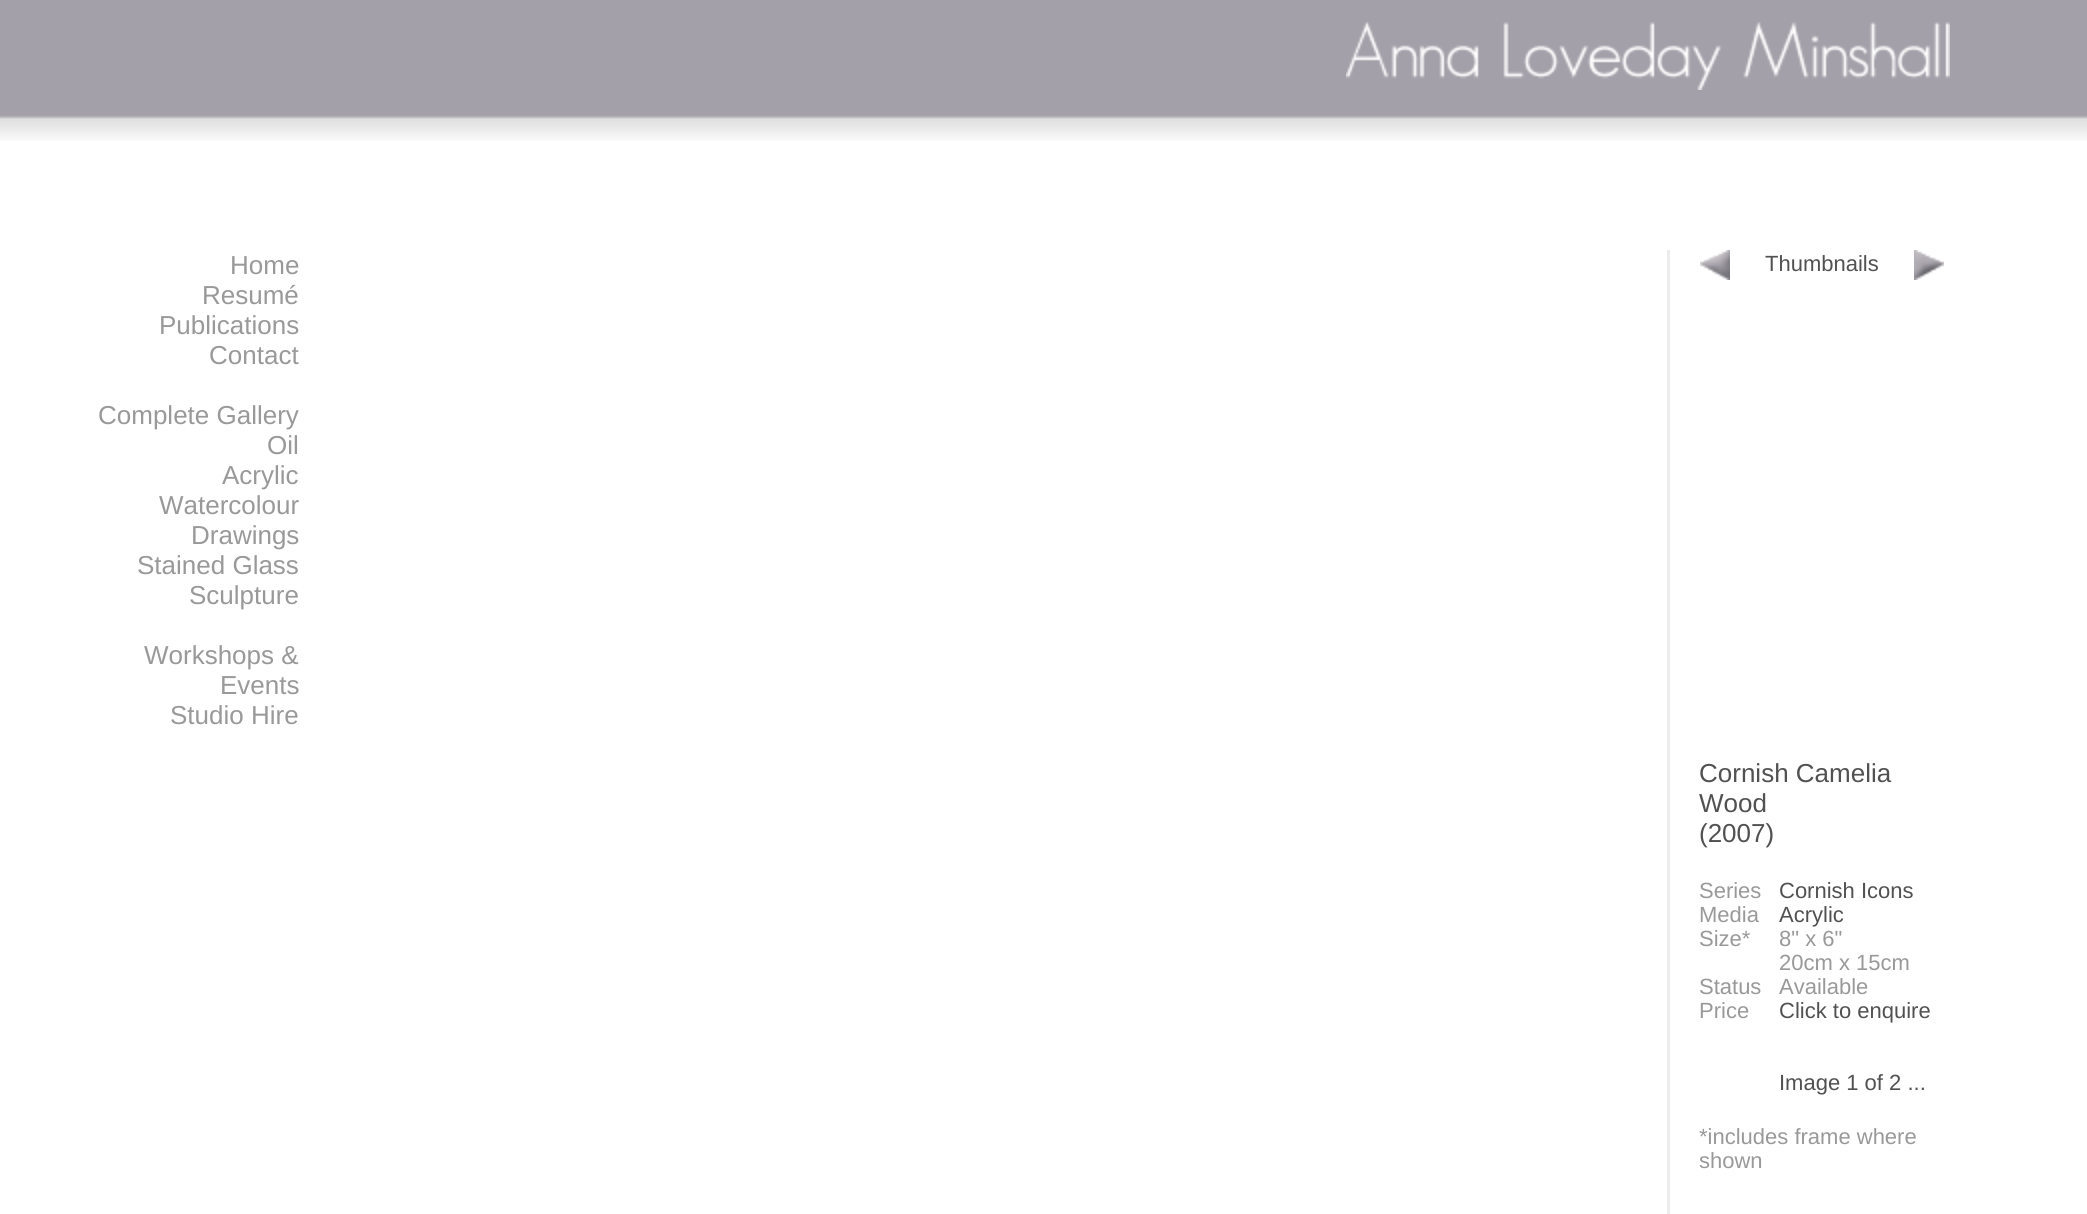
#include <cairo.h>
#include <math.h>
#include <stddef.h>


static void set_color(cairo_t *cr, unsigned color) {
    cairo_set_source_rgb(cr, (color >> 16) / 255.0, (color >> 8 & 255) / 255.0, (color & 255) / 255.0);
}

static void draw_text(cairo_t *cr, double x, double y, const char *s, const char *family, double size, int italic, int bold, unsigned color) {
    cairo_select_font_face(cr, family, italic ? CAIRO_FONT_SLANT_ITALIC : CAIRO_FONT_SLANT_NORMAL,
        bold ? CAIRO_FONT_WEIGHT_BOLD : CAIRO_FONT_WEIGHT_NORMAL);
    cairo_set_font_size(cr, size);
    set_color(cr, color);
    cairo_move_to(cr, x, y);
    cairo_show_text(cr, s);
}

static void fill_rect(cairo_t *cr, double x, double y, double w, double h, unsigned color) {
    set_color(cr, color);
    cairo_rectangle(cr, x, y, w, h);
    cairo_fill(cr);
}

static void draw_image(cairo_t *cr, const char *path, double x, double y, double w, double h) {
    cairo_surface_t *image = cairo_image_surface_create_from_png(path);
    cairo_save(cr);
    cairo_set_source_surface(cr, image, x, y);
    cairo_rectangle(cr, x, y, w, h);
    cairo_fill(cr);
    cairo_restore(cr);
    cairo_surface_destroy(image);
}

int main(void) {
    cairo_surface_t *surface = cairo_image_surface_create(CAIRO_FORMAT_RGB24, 2087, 1214);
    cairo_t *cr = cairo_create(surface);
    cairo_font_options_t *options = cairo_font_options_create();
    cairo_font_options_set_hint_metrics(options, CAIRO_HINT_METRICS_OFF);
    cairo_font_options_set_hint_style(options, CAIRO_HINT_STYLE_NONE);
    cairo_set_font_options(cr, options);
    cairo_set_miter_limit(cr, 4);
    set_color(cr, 0xFFFFFF);
    cairo_paint(cr);
    draw_image(cr, "assets/img1.png", 0, 0, 2087, 141);
    draw_image(cr, "assets/img2.png", 1346, 22, 604, 68);
    draw_text(cr, 230, 274, "Home", "Liberation Sans", 26, 0, 0, 0x999999);
    draw_text(cr, 202, 304, "Resumé", "Liberation Sans", 26, 0, 0, 0x999999);
    draw_text(cr, 159, 334, "Publications", "Liberation Sans", 26, 0, 0, 0x999999);
    draw_text(cr, 209, 364, "Contact", "Liberation Sans", 26, 0, 0, 0x999999);
    draw_text(cr, 98, 424, "Complete Gallery", "Liberation Sans", 26, 0, 0, 0x999999);
    draw_text(cr, 267, 454, "Oil", "Liberation Sans", 26, 0, 0, 0x999999);
    draw_text(cr, 222, 484, "Acrylic", "Liberation Sans", 26, 0, 0, 0x999999);
    draw_text(cr, 159, 514, "Watercolour", "Liberation Sans", 26, 0, 0, 0x999999);
    draw_text(cr, 191, 544, "Drawings", "Liberation Sans", 26, 0, 0, 0x999999);
    draw_text(cr, 137, 574, "Stained Glass", "Liberation Sans", 26, 0, 0, 0x999999);
    draw_text(cr, 189, 604, "Sculpture", "Liberation Sans", 26, 0, 0, 0x999999);
    draw_text(cr, 144, 664, "Workshops &", "Liberation Sans", 26, 0, 0, 0x999999);
    draw_text(cr, 220, 694, "Events", "Liberation Sans", 26, 0, 0, 0x999999);
    draw_text(cr, 170, 724, "Studio Hire", "Liberation Sans", 26, 0, 0, 0x999999);
    fill_rect(cr, 1667, 250, 3, 964, 0xECECEC);
    draw_image(cr, "assets/img3.png", 1700, 250, 30, 30);
    draw_text(cr, 1765, 271, "Thumbnails", "Liberation Sans", 22, 0, 0, 0x515151);
    draw_image(cr, "assets/img4.png", 1914, 250, 30, 30);
    draw_text(cr, 1699, 782, "Cornish Camelia", "Liberation Sans", 26, 0, 0, 0x515151);
    draw_text(cr, 1699, 812, "Wood", "Liberation Sans", 26, 0, 0, 0x515151);
    draw_text(cr, 1699, 842, "(2007)", "Liberation Sans", 26, 0, 0, 0x515151);
    draw_text(cr, 1699, 898, "Series", "Liberation Sans", 22, 0, 0, 0x999999);
    draw_text(cr, 1779, 898, "Cornish Icons", "Liberation Sans", 22, 0, 0, 0x515151);
    draw_text(cr, 1699, 922, "Media", "Liberation Sans", 22, 0, 0, 0x999999);
    draw_text(cr, 1779, 922, "Acrylic", "Liberation Sans", 22, 0, 0, 0x515151);
    draw_text(cr, 1699, 946, "Size*", "Liberation Sans", 22, 0, 0, 0x999999);
    draw_text(cr, 1779, 946, "8\" x 6\"", "Liberation Sans", 22, 0, 0, 0x999999);
    draw_text(cr, 1779, 970, "20cm x 15cm", "Liberation Sans", 22, 0, 0, 0x999999);
    draw_text(cr, 1699, 994, "Status", "Liberation Sans", 22, 0, 0, 0x999999);
    draw_text(cr, 1779, 994, "Available", "Liberation Sans", 22, 0, 0, 0x999999);
    draw_text(cr, 1699, 1018, "Price", "Liberation Sans", 22, 0, 0, 0x999999);
    draw_text(cr, 1779, 1018, "Click to enquire", "Liberation Sans", 22, 0, 0, 0x515151);
    draw_text(cr, 1779, 1090, "Image 1 of 2 ...", "Liberation Sans", 22, 0, 0, 0x515151);
    draw_text(cr, 1699, 1144, "*includes frame where", "Liberation Sans", 22, 0, 0, 0x999999);
    draw_text(cr, 1699, 1168, "shown", "Liberation Sans", 22, 0, 0, 0x999999);
    cairo_surface_write_to_png(surface, "output.png");
    cairo_font_options_destroy(options);
    cairo_destroy(cr);
    cairo_surface_destroy(surface);
    return 0;
}
